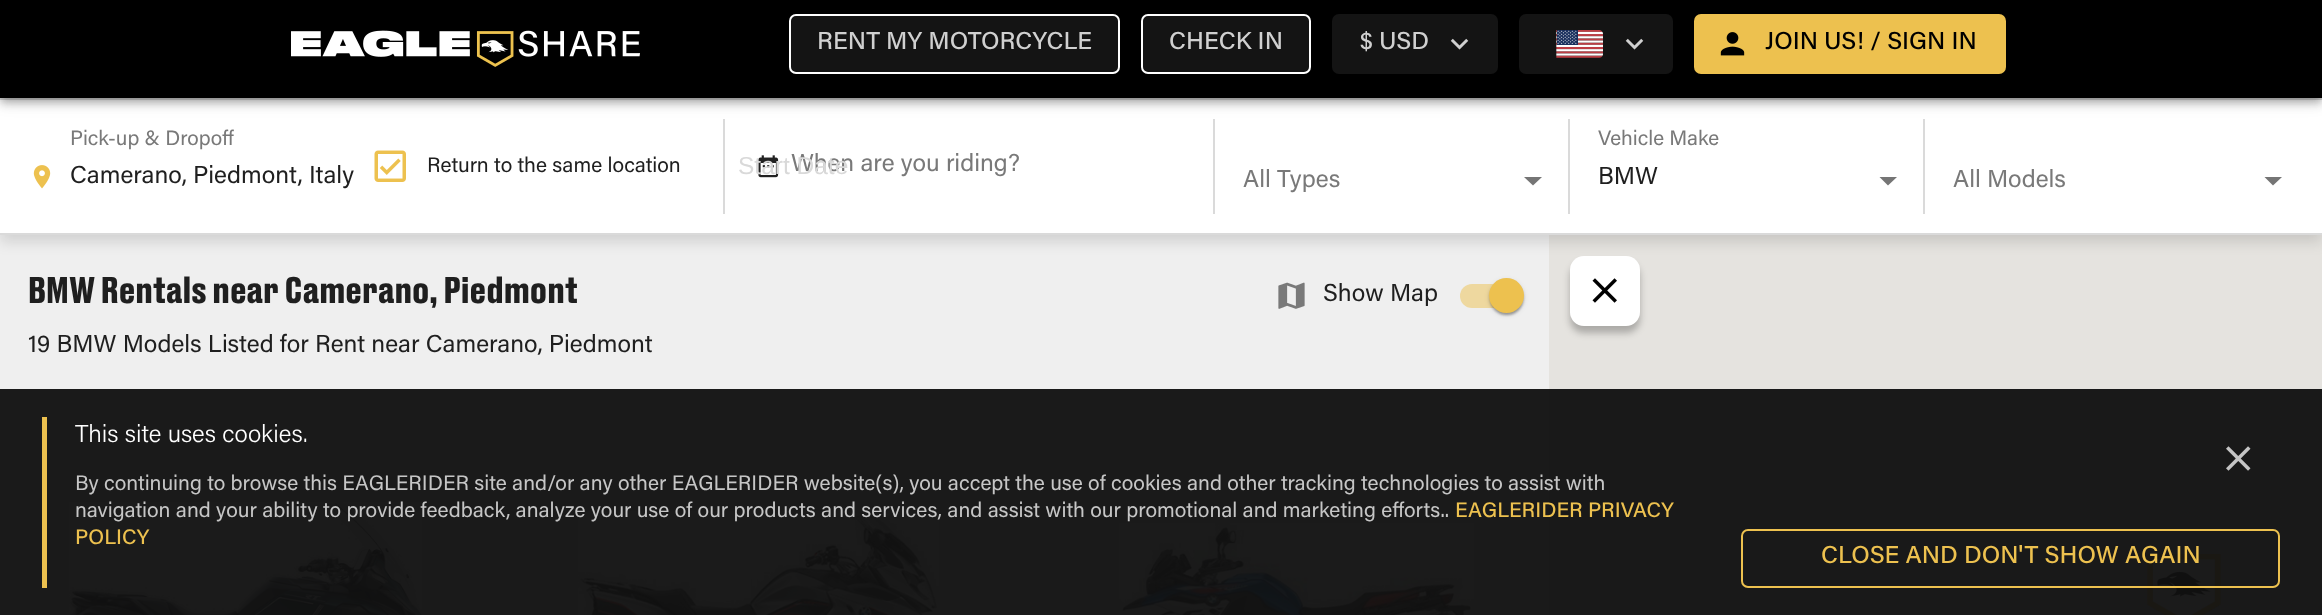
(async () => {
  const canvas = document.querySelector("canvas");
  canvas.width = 2322;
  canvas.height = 615;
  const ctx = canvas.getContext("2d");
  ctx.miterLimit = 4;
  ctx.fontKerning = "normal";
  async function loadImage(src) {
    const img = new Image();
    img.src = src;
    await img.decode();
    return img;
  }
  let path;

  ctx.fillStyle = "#efefef";
  ctx.fillRect(0, 0, 2322, 615);
  ctx.fillStyle = "#e5e3df";
  ctx.fillRect(1549, 235, 773, 154);
  ctx.fillStyle = "rgba(0, 0, 0, 0.25)";
  ctx.filter = "blur(3.5px)";
  ctx.beginPath();
  ctx.roundRect(1570, 263, 70, 70, 14);
  ctx.fill();
  ctx.filter = "none";
  ctx.fillStyle = "#ffffff";
  ctx.beginPath();
  ctx.roundRect(1570, 256, 70, 70, 14);
  ctx.fill();
  ctx.fillStyle = "rgba(0, 0, 0, 0.12)";
  ctx.filter = "blur(7px)";
  ctx.beginPath();
  ctx.rect(0, 105, 2322, 137);
  ctx.fill();
  ctx.filter = "none";
  for (const [x, y, w, h, color] of [
    [0, 100, 2322, 133, "#ffffff"],
    [0, 98, 2322, 2, "#dadada"],
    [723, 119, 2, 95, "#dadada"],
    [1213, 119, 2, 95, "#dadada"],
    [1568, 119, 2, 95, "#dadada"],
    [1923, 119, 2, 95, "#dadada"],
  ]) {
    ctx.fillStyle = color;
    ctx.fillRect(x, y, w, h);
  }
  ctx.fillStyle = "rgba(0, 0, 0, 0.12)";
  ctx.filter = "blur(9px)";
  ctx.beginPath();
  ctx.rect(0, 2, 2322, 98);
  ctx.fill();
  ctx.filter = "none";
  ctx.fillStyle = "rgba(0, 0, 0, 0.14)";
  ctx.filter = "blur(4.5px)";
  ctx.beginPath();
  ctx.rect(0, 7, 2322, 98);
  ctx.fill();
  ctx.filter = "none";
  ctx.fillStyle = "rgba(0, 0, 0, 0.2)";
  ctx.filter = "blur(3.5px)";
  ctx.beginPath();
  ctx.rect(2, 5, 2319, 95);
  ctx.fill();
  ctx.filter = "none";
  ctx.fillStyle = "#000000";
  ctx.fillRect(0, 0, 2322, 98);
  ctx.drawImage(await loadImage("img/1.png"), 291, 30, 349, 37);
  ctx.fillStyle = "#141414";
  ctx.beginPath();
  ctx.roundRect(790, 15, 329, 58, 6);
  ctx.fill();
  ctx.strokeStyle = "#ffffff";
  ctx.lineWidth = 2;
  ctx.stroke();
  ctx.beginPath();
  ctx.roundRect(1142, 15, 168, 58, 6);
  ctx.fill();
  ctx.stroke();
  ctx.beginPath();
  ctx.roundRect(1332, 14, 166, 60, 7);
  ctx.fill();
  ctx.drawImage(await loadImage("img/2.png"), 1450, 38, 19, 12);
  ctx.beginPath();
  ctx.roundRect(1519, 14, 154, 60, 7);
  ctx.fill();
  ctx.drawImage(await loadImage("img/3.png"), 1556, 30, 47, 28);
  ctx.drawImage(await loadImage("img/2.png"), 1625, 38, 19, 12);
  ctx.fillStyle = "#edc14f";
  ctx.beginPath();
  ctx.roundRect(1694, 14, 312, 60, 7);
  ctx.fill();
  ctx.drawImage(await loadImage("img/4.png"), 1720, 32, 25, 24);
  ctx.fillStyle = "#dadada";
  ctx.fillRect(0, 233, 2322, 2);
  ctx.drawImage(await loadImage("img/5.png"), 33, 165, 18, 24);
  ctx.drawImage(await loadImage("img/6.png"), 374, 150, 32, 32);
  ctx.drawImage(await loadImage("img/7.png"), 758, 155, 21, 23);
  ctx.fillStyle = "#757575";
  path = new Path2D("M1524 177L1533 185.5L1542 177Z");
  ctx.fill(path);
  path = new Path2D("M1879.5 177L1888 185.5L1897 177Z");
  ctx.fill(path);
  path = new Path2D("M2264.5 177L2273 185.5L2282 177Z");
  ctx.fill(path);
  ctx.fillStyle = "#1a1a1a";
  ctx.fillRect(0, 389, 1549, 226);
  ctx.drawImage(await loadImage("img/8.png"), 1278, 282, 27, 27);
  ctx.fillStyle = "#eed89f";
  ctx.beginPath();
  ctx.roundRect(1460, 284, 59, 24, 12);
  ctx.fill();
  ctx.fillStyle = "rgba(0, 0, 0, 0.12)";
  ctx.filter = "blur(2.5px)";
  ctx.beginPath();
  ctx.roundRect(1489, 280, 35, 35, 17.5);
  ctx.fill();
  ctx.filter = "none";
  ctx.fillStyle = "rgba(0, 0, 0, 0.14)";
  ctx.filter = "blur(1px)";
  ctx.beginPath();
  ctx.roundRect(1489, 280, 35, 35, 17.5);
  ctx.fill();
  ctx.filter = "none";
  ctx.fillStyle = "rgba(0, 0, 0, 0.2)";
  ctx.filter = "blur(1px)";
  ctx.beginPath();
  ctx.roundRect(1491, 284, 32, 31, 15.5);
  ctx.fill();
  ctx.filter = "none";
  ctx.fillStyle = "#edc14f";
  ctx.beginPath();
  ctx.arc(1506.5, 295.5, 17.5, 0, Math.PI * 2);
  ctx.fill();
  ctx.drawImage(await loadImage("img/9.png"), 69, 502, 353, 113);
  ctx.drawImage(await loadImage("img/10.png"), 578, 511, 361, 104);
  ctx.drawImage(await loadImage("img/11.png"), 1119, 523, 355, 92);
  ctx.fillStyle = "#191919";
  ctx.fillRect(1549, 389, 773, 226);
  ctx.drawImage(await loadImage("img/12.png"), 2147, 554, 74, 61);
  ctx.drawImage(await loadImage("img/13.png"), 1592, 278, 25, 25);
  ctx.fillStyle = "#edc14f";
  ctx.fillRect(42, 417, 5, 171);
  ctx.drawImage(await loadImage("img/14.png"), 2226, 446, 25, 25);
  ctx.beginPath();
  ctx.roundRect(1742, 530, 537, 57, 6);
  ctx.strokeStyle = "#edc14f";
  ctx.stroke();
  ctx.font = "500 24.5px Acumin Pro";
  ctx.fillStyle = "#d0d0d0";
  for (const [text, x, y] of [
    ["RENT MY MOTORCYCLE", 817, 49],
    ["CHECK IN", 1169, 49],
    ["$ USD", 1360, 49],
  ]) {
    ctx.fillText(text, x, y);
  }
  ctx.fillStyle = "#000000";
  ctx.fillText("JOIN US! / SIGN IN", 1765, 49);
  ctx.font = "20.75px Acumin Pro";
  ctx.fillStyle = "#797979";
  ctx.fillText("Pick-up & Dropoff", 70, 145);
  ctx.font = "24.5px Acumin Pro";
  ctx.fillStyle = "#1f1f1f";
  ctx.fillText("Camerano, Piedmont, Italy", 70, 183);
  ctx.font = "21px Acumin Pro";
  ctx.fillText("Return to the same location", 427, 172);
  ctx.font = "24.5px Acumin Pro";
  ctx.fillStyle = "#797979";
  ctx.fillText("When are you riding?", 791, 171);
  ctx.font = "24.5px Liberation Sans";
  ctx.fillStyle = "#d9d9d9";
  ctx.fillText("Start Date", 738, 174);
  ctx.font = "24.5px Acumin Pro";
  ctx.fillStyle = "#797979";
  ctx.fillText("All Types", 1243, 187);
  ctx.font = "20.75px Acumin Pro";
  ctx.fillText("Vehicle Make", 1598, 145);
  ctx.font = "24.5px Acumin Pro";
  ctx.fillStyle = "#1f1f1f";
  ctx.fillText("BMW", 1598, 184);
  ctx.fillStyle = "#797979";
  ctx.fillText("All Models", 1953, 187);
  ctx.font = "bold 35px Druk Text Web";
  ctx.fillStyle = "#1f1f1f";
  ctx.fillText("BMW Rentals near Camerano, Piedmont", 28, 303);
  ctx.font = "24.5px Acumin Pro";
  ctx.fillText("19 BMW Models Listed for Rent near Camerano, Piedmont", 28, 352);
  ctx.fillText("Show Map", 1323, 301);
  ctx.font = "300 24.5px Acumin Pro";
  ctx.fillStyle = "#ffffff";
  ctx.fillText("This site uses cookies.", 75, 442);
  ctx.font = "21px Acumin Pro";
  ctx.fillStyle = "#c6c6c6";
  ctx.fillText("By continuing to browse this EAGLERIDER site and/or any other EAGLERIDER website(s), you accept the use of cookies and other tracking technologies to assist with", 75, 490);
  ctx.fillText("navigation and your ability to provide feedback, analyze your use of our products and services, and assist with our promotional and marketing efforts..", 75, 517);
  ctx.font = "500 21px Acumin Pro";
  ctx.fillStyle = "#edc14f";
  ctx.fillText("EAGLERIDER PRIVACY", 1455, 517);
  ctx.fillText("POLICY", 75, 544);
  ctx.font = "500 24.5px Acumin Pro";
  ctx.fillText("CLOSE AND DON'T SHOW AGAIN", 1821, 563);
})();
